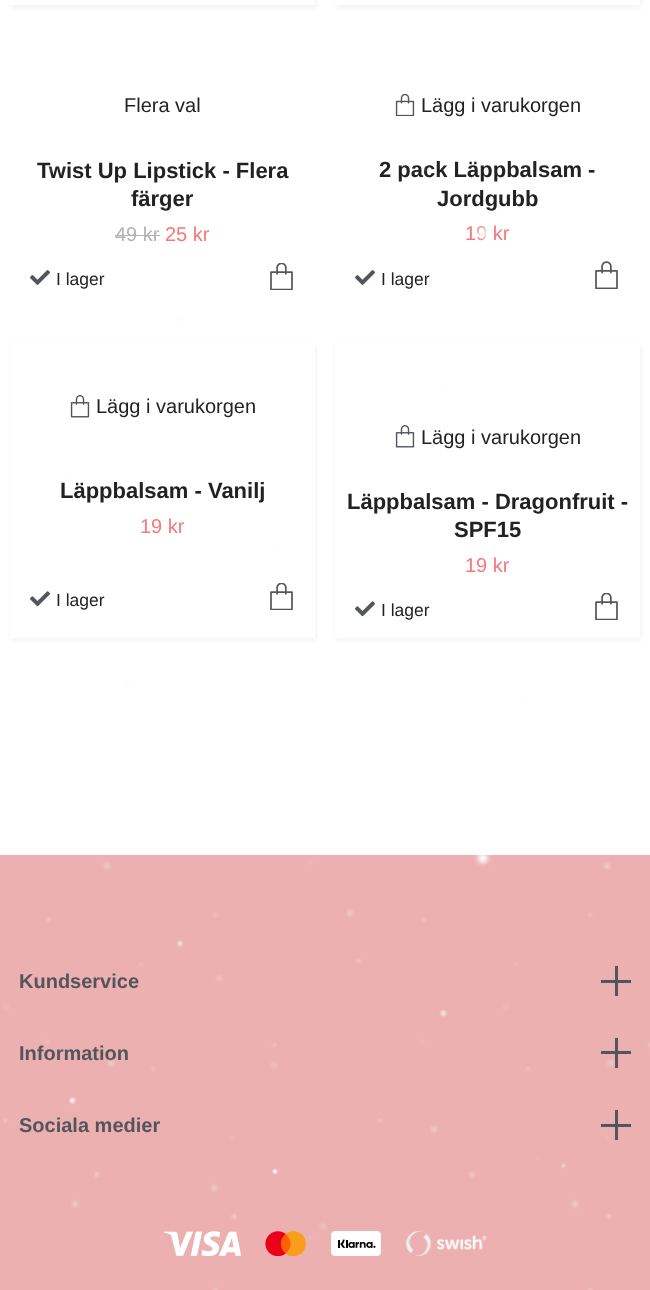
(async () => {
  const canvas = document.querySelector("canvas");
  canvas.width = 650;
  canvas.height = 1290;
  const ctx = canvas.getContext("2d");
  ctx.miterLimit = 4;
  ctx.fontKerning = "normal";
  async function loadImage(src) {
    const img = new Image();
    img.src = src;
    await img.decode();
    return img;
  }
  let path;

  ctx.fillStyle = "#ffffff";
  ctx.fillRect(0, 0, 650, 1290);
  ctx.save();
  path = new Path2D("M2 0H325V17H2ZM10-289H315V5H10Z");
  ctx.clip(path, "evenodd");
  ctx.fillStyle = "rgba(0, 0, 0, 0.05)";
  ctx.filter = "blur(2.5px)";
  ctx.beginPath();
  ctx.rect(11, -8, 305, 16);
  ctx.fill();
  ctx.filter = "none";
  ctx.restore();
  ctx.save();
  path = new Path2D("M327 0H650V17H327ZM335-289H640V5H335Z");
  ctx.clip(path, "evenodd");
  ctx.fillStyle = "rgba(0, 0, 0, 0.05)";
  ctx.filter = "blur(2.5px)";
  ctx.beginPath();
  ctx.rect(336, -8, 305, 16);
  ctx.fill();
  ctx.filter = "none";
  ctx.restore();
  ctx.fillStyle = "#b3b3b3";
  ctx.fillRect(115, 235, 45, 1);
  ctx.drawImage(await loadImage("img/1.png"), 30, 270, 20, 15);
  ctx.drawImage(await loadImage("img/2.png"), 270, 263, 23, 27);
  ctx.drawImage(await loadImage("img/3.png"), 395, 94, 20, 22);
  ctx.drawImage(await loadImage("img/1.png"), 355, 270, 20, 15);
  ctx.drawImage(await loadImage("img/4.png"), 595, 261, 23, 28);
  ctx.fillStyle = "rgba(0, 0, 0, 0.05)";
  ctx.filter = "blur(2.5px)";
  ctx.beginPath();
  ctx.rect(11, 346, 305, 294);
  ctx.fill();
  ctx.filter = "none";
  ctx.fillStyle = "#ffffff";
  ctx.fillRect(10, 344, 305, 294);
  ctx.drawImage(await loadImage("img/5.png"), 70, 395, 20, 23);
  ctx.drawImage(await loadImage("img/6.png"), 30, 591, 20, 16);
  ctx.drawImage(await loadImage("img/2.png"), 270, 583, 23, 27);
  ctx.fillStyle = "rgba(0, 0, 0, 0.05)";
  ctx.filter = "blur(2.5px)";
  ctx.beginPath();
  ctx.rect(336, 346, 305, 294);
  ctx.fill();
  ctx.filter = "none";
  ctx.fillStyle = "#ffffff";
  ctx.fillRect(335, 344, 305, 294);
  ctx.drawImage(await loadImage("img/5.png"), 395, 425, 20, 23);
  ctx.drawImage(await loadImage("img/6.png"), 355, 601, 20, 16);
  ctx.drawImage(await loadImage("img/2.png"), 595, 593, 23, 27);
  for (const [x, y, w, h, color] of [
    [0, 855, 650, 435, "#edb0b0"],
    [615, 966, 3, 30, "#53555d"],
    [601, 980, 30, 3, "#53555d"],
    [615, 1038, 3, 30, "#53555d"],
    [601, 1051, 30, 3, "#53555d"],
    [615, 1110, 3, 30, "#53555d"],
    [601, 1124, 30, 3, "#53555d"],
  ]) {
    ctx.fillStyle = color;
    ctx.fillRect(x, y, w, h);
  }
  ctx.drawImage(await loadImage("img/8.png"), 164, 1231, 77, 25);
  ctx.drawImage(await loadImage("img/9.png"), 265, 1231, 41, 25);
  ctx.drawImage(await loadImage("img/10.png"), 331, 1231, 50, 25);
  ctx.drawImage(await loadImage("img/11.png"), 406, 1231, 81, 25);
  ctx.font = "20px Liberation Sans";
  ctx.fillStyle = "#222222";
  ctx.fillText("Flera val", 124, 112);
  ctx.font = "bold 22px Liberation Sans";
  ctx.fillText("Twist Up Lipstick - Flera", 37, 178);
  ctx.fillText("färger", 131, 206);
  ctx.font = "20px Liberation Sans";
  ctx.fillStyle = "#b3b3b3";
  ctx.fillText("49 kr", 115, 241);
  ctx.fillStyle = "#f57979";
  ctx.fillText("25 kr", 165, 241);
  ctx.font = "17.5px Liberation Sans";
  ctx.fillStyle = "#222222";
  ctx.fillText("I lager", 56, 285);
  ctx.font = "20px Liberation Sans";
  ctx.fillText("Lägg i varukorgen", 421, 112);
  ctx.font = "bold 22px Liberation Sans";
  ctx.fillText("2 pack Läppbalsam -", 379, 177);
  ctx.fillText("Jordgubb", 437, 206);
  ctx.font = "20px Liberation Sans";
  ctx.fillStyle = "#f57979";
  ctx.fillText("19 kr", 465, 240);
  ctx.font = "17.5px Liberation Sans";
  ctx.fillStyle = "#222222";
  ctx.fillText("I lager", 381, 285);
  ctx.font = "20px Liberation Sans";
  ctx.fillText("Lägg i varukorgen", 96, 413);
  ctx.font = "bold 22px Liberation Sans";
  ctx.fillText("Läppbalsam - Vanilj", 60, 498);
  ctx.font = "20px Liberation Sans";
  ctx.fillStyle = "#f57979";
  ctx.fillText("19 kr", 140, 533);
  ctx.font = "17.5px Liberation Sans";
  ctx.fillStyle = "#222222";
  ctx.fillText("I lager", 56, 606);
  ctx.font = "20px Liberation Sans";
  ctx.fillText("Lägg i varukorgen", 421, 444);
  ctx.font = "bold 22px Liberation Sans";
  ctx.fillText("Läppbalsam - Dragonfruit -", 347, 509);
  ctx.fillText("SPF15", 454, 537);
  ctx.font = "20px Liberation Sans";
  ctx.fillStyle = "#f57979";
  ctx.fillText("19 kr", 465, 572);
  ctx.font = "17.5px Liberation Sans";
  ctx.fillStyle = "#222222";
  ctx.fillText("I lager", 381, 616);
  ctx.font = "bold 20px Liberation Sans";
  ctx.fillStyle = "#53555d";
  for (const [text, x, y] of [
    ["Kundservice", 19, 988],
    ["Information", 19, 1060],
    ["Sociala medier", 19, 1132],
  ]) {
    ctx.fillText(text, x, y);
  }
  ctx.drawImage(await loadImage("img/7.png"), 2, 166, 648, 1124);
})();
